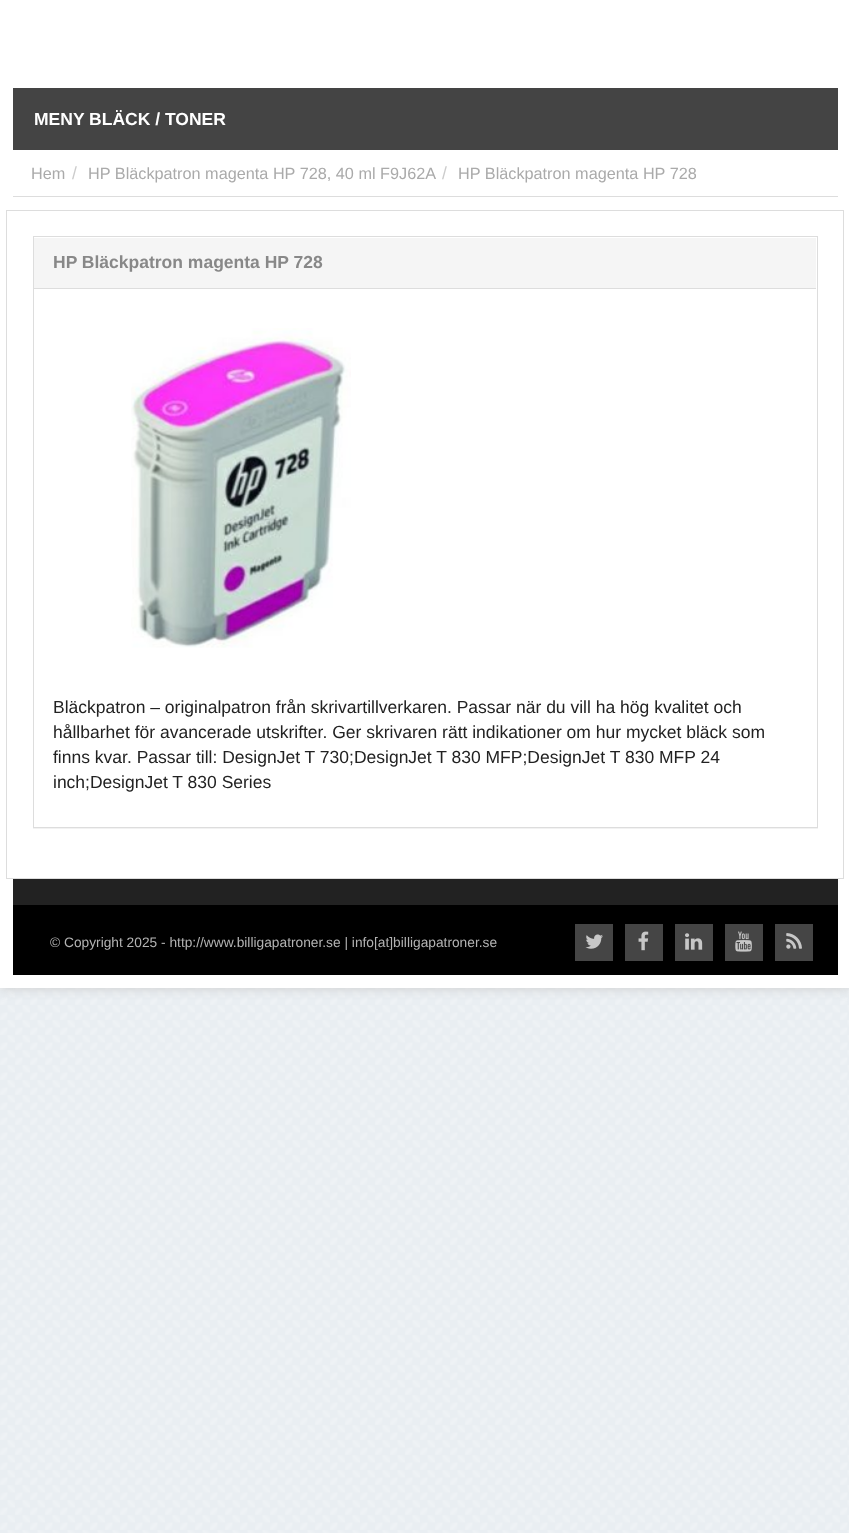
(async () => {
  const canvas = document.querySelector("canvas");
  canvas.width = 849;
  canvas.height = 1533;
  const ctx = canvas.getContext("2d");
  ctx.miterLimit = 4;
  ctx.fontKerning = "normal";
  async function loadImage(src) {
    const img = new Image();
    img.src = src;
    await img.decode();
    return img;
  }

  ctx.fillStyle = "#e9eef2";
  ctx.fillRect(0, 0, 849, 1533);
  ctx.drawImage(await loadImage("img/1.png"), 0, 988, 849, 545);
  ctx.fillStyle = "#cccccc";
  ctx.filter = "blur(6px)";
  ctx.beginPath();
  ctx.rect(0, 0, 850, 988);
  ctx.fill();
  ctx.filter = "none";
  for (const [x, y, w, h, color] of [
    [0, 0, 849, 988, "#ffffff"],
    [13, 88, 825, 62, "#444444"],
    [13, 196, 825, 1, "#dddddd"],
  ]) {
    ctx.fillStyle = color;
    ctx.fillRect(x, y, w, h);
  }
  ctx.strokeStyle = "#dddddd";
  ctx.strokeRect(6.5, 210.5, 837, 668);
  ctx.fillStyle = "rgba(0, 0, 0, 0.05)";
  ctx.filter = "blur(0.5px)";
  ctx.beginPath();
  ctx.rect(33, 238, 785, 591);
  ctx.fill();
  ctx.filter = "none";
  ctx.fillStyle = "#ffffff";
  ctx.fillRect(34, 238, 783, 589);
  ctx.strokeRect(33.5, 236.5, 784, 591);
  ctx.fillStyle = "#f5f5f5";
  ctx.fillRect(34, 238, 782, 50);
  ctx.fillStyle = "#dddddd";
  ctx.fillRect(34, 288, 782, 1);
  ctx.drawImage(await loadImage("img/2.png"), 131, 328, 220, 320);
  for (const [x, y, w, h, color] of [
    [13, 879, 825, 26, "#222222"],
    [13, 905, 825, 70, "#000000"],
    [575, 924, 38, 37, "#454545"],
  ]) {
    ctx.fillStyle = color;
    ctx.fillRect(x, y, w, h);
  }
  ctx.drawImage(await loadImage("img/3.png"), 585, 934, 18, 15);
  ctx.fillRect(625, 924, 38, 37);
  ctx.drawImage(await loadImage("img/4.png"), 638, 931, 11, 20);
  ctx.fillRect(675, 924, 38, 37);
  ctx.drawImage(await loadImage("img/5.png"), 685, 933, 18, 17);
  ctx.fillRect(725, 924, 38, 37);
  ctx.drawImage(await loadImage("img/6.png"), 735, 931, 17, 21);
  ctx.fillRect(775, 924, 38, 37);
  ctx.drawImage(await loadImage("img/7.png"), 786, 933, 16, 16);
  ctx.font = "bold 17.5px Liberation Sans";
  ctx.fillStyle = "#ffffff";
  ctx.fillText("MENY BLÄCK / TONER", 34, 125);
  ctx.font = "16.25px Liberation Sans";
  ctx.fillStyle = "#aaaaaa";
  ctx.fillText("Hem", 31, 179);
  ctx.font = "17.5px Liberation Sans";
  ctx.fillStyle = "#cccccc";
  ctx.fillText("/", 72, 179);
  ctx.font = "16.25px Liberation Sans";
  ctx.fillStyle = "#aaaaaa";
  ctx.fillText("HP Bläckpatron magenta HP 728, 40 ml F9J62A", 88, 179);
  ctx.font = "17.5px Liberation Sans";
  ctx.fillStyle = "#cccccc";
  ctx.fillText("/", 442, 179);
  ctx.font = "16.25px Liberation Sans";
  ctx.fillStyle = "#aaaaaa";
  ctx.fillText("HP Bläckpatron magenta HP 728", 458, 179);
  ctx.font = "bold 17.5px Liberation Sans";
  ctx.fillStyle = "#888888";
  ctx.fillText("HP Bläckpatron magenta HP 728", 53, 268);
  ctx.font = "17.5px Liberation Sans";
  ctx.fillStyle = "#222222";
  for (const [text, x, y] of [
    ["Bläckpatron – originalpatron från skrivartillverkaren. Passar när du vill ha hög kvalitet och", 53, 713],
    ["hållbarhet för avancerade utskrifter. Ger skrivaren rätt indikationer om hur mycket bläck som", 53, 738],
    ["finns kvar. Passar till: DesignJet T 730;DesignJet T 830 MFP;DesignJet T 830 MFP 24", 53, 763],
    ["inch;DesignJet T 830 Series", 53, 788],
  ]) {
    ctx.fillText(text, x, y);
  }
  ctx.font = "13.75px Liberation Sans";
  ctx.fillStyle = "#b3b3b3";
  ctx.fillText("© Copyright 2025 - http://www.billigapatroner.se | info[at]billigapatroner.se", 50, 947);
})();
